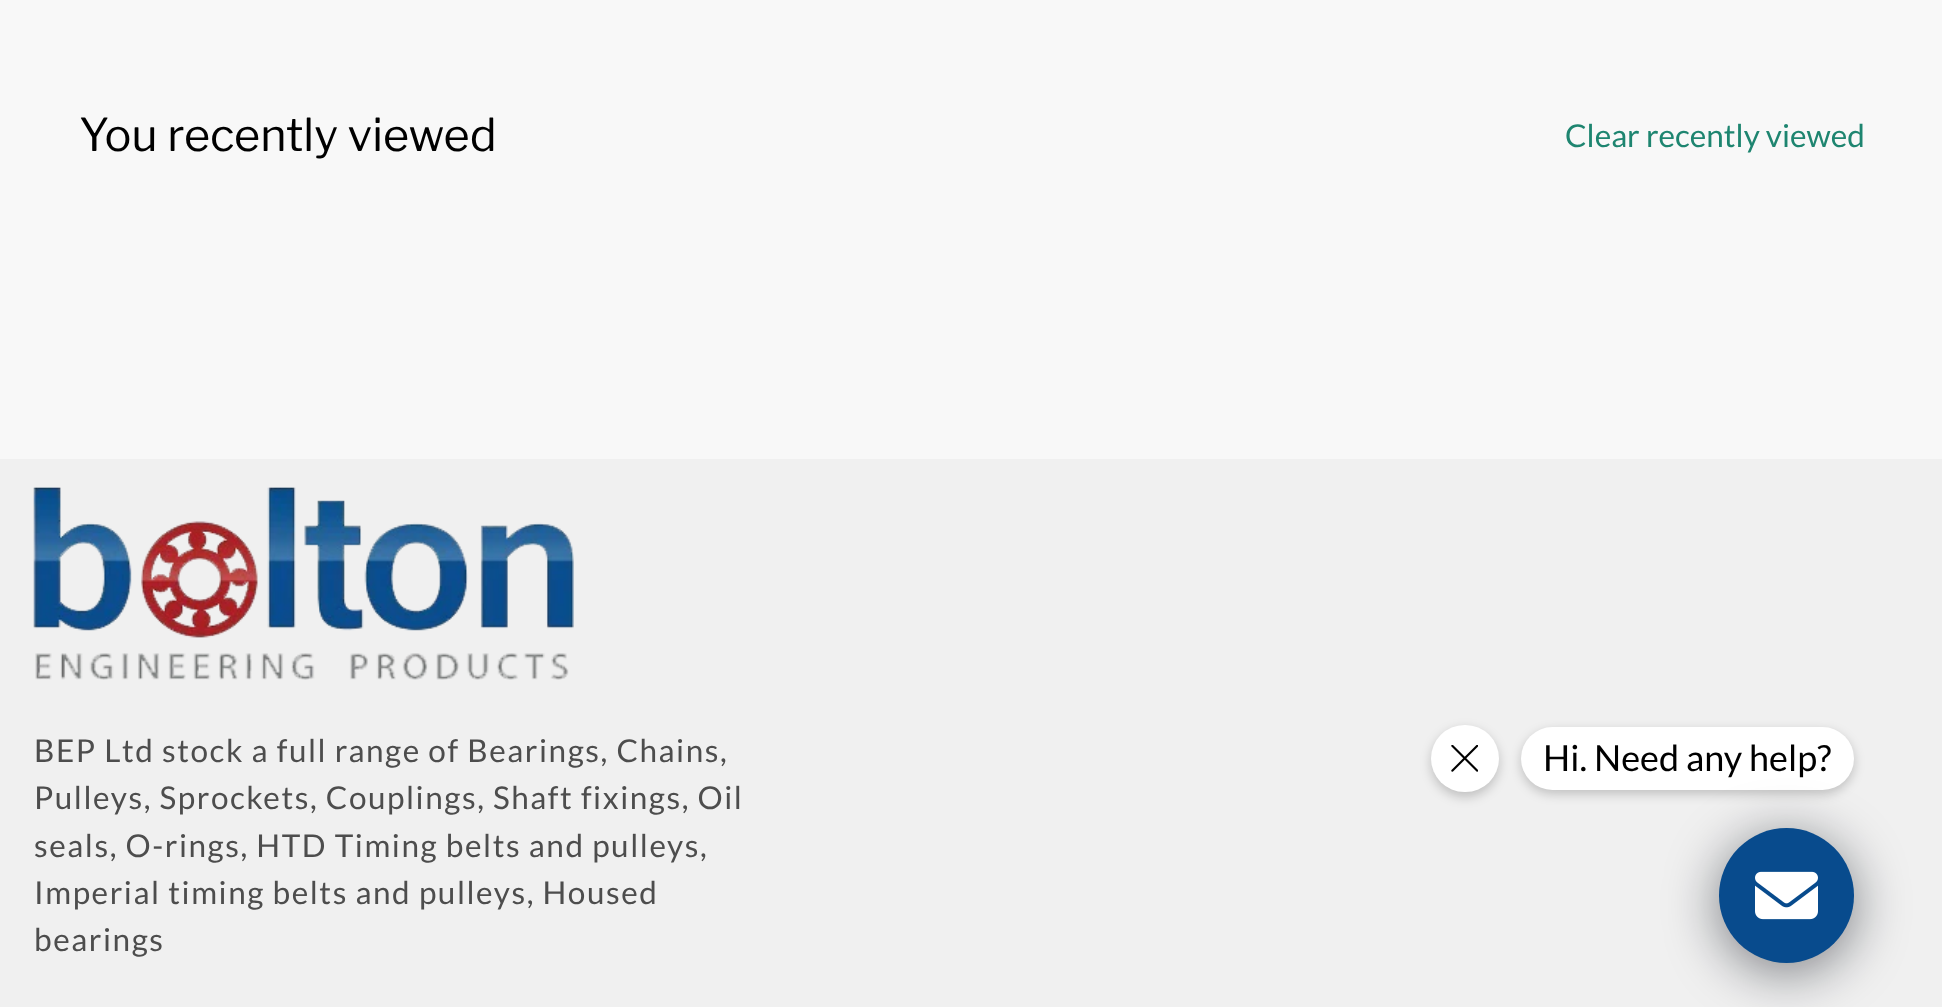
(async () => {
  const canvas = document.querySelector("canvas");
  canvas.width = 1942;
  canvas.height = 1007;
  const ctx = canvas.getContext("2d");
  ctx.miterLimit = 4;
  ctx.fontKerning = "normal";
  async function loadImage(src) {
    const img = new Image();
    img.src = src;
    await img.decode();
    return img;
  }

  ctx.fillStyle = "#f8f8f8";
  ctx.fillRect(0, 0, 1942, 1007);
  ctx.fillStyle = "#f0f0f0";
  ctx.fillRect(0, 459, 1942, 548);
  ctx.drawImage(await loadImage("img/1.png"), 33, 487, 541, 193);
  ctx.fillStyle = "rgba(0, 0, 0, 0.2)";
  ctx.filter = "blur(5.5px)";
  ctx.beginPath();
  ctx.roundRect(1431, 729, 68, 68, 34);
  ctx.fill();
  ctx.filter = "none";
  ctx.fillStyle = "#ffffff";
  ctx.beginPath();
  ctx.roundRect(1431, 725, 68, 67, 33.5);
  ctx.fill();
  ctx.drawImage(await loadImage("img/2.png"), 1451, 745, 27, 27);
  ctx.fillStyle = "rgba(0, 0, 0, 0.2)";
  ctx.filter = "blur(5.5px)";
  ctx.beginPath();
  ctx.roundRect(1521, 731, 333, 63, 31.5);
  ctx.fill();
  ctx.filter = "none";
  ctx.fillStyle = "#ffffff";
  ctx.beginPath();
  ctx.roundRect(1521, 727, 333, 63, 31.5);
  ctx.fill();
  ctx.fillStyle = "rgba(2, 6, 16, 0.5)";
  ctx.filter = "blur(27px)";
  ctx.beginPath();
  ctx.roundRect(1719, 837, 135, 135, 67.5);
  ctx.fill();
  ctx.filter = "none";
  ctx.fillStyle = "#084b8d";
  ctx.beginPath();
  ctx.arc(1786.5, 895.5, 67.5, 0, Math.PI * 2);
  ctx.fill();
  ctx.drawImage(await loadImage("img/3.png"), 1755, 871, 63, 49);
  ctx.font = "45px Libre Franklin";
  ctx.fillStyle = "#000000";
  ctx.fillText("You recently viewed", 79, 151);
  ctx.font = "31.5px Lato";
  ctx.fillStyle = "#1e8570";
  ctx.fillText("Clear recently viewed", 1565, 147);
  ctx.letterSpacing = "1.55px";
  ctx.fillStyle = "#4d4d4d";
  for (const [text, x, y] of [
    ["BEP Ltd stock a full range of Bearings, Chains,", 34, 762],
    ["Pulleys, Sprockets, Couplings, Shaft fixings, Oil", 34, 809],
    ["seals, O-rings, HTD Timing belts and pulleys,", 34, 857],
    ["Imperial timing belts and pulleys, Housed", 34, 904],
    ["bearings", 34, 951],
  ]) {
    ctx.fillText(text, x, y);
  }
  ctx.letterSpacing = "0px";
  ctx.font = "36px Lato";
  ctx.fillStyle = "#000000";
  ctx.fillText("Hi. Need any help?", 1543, 771);
})();
